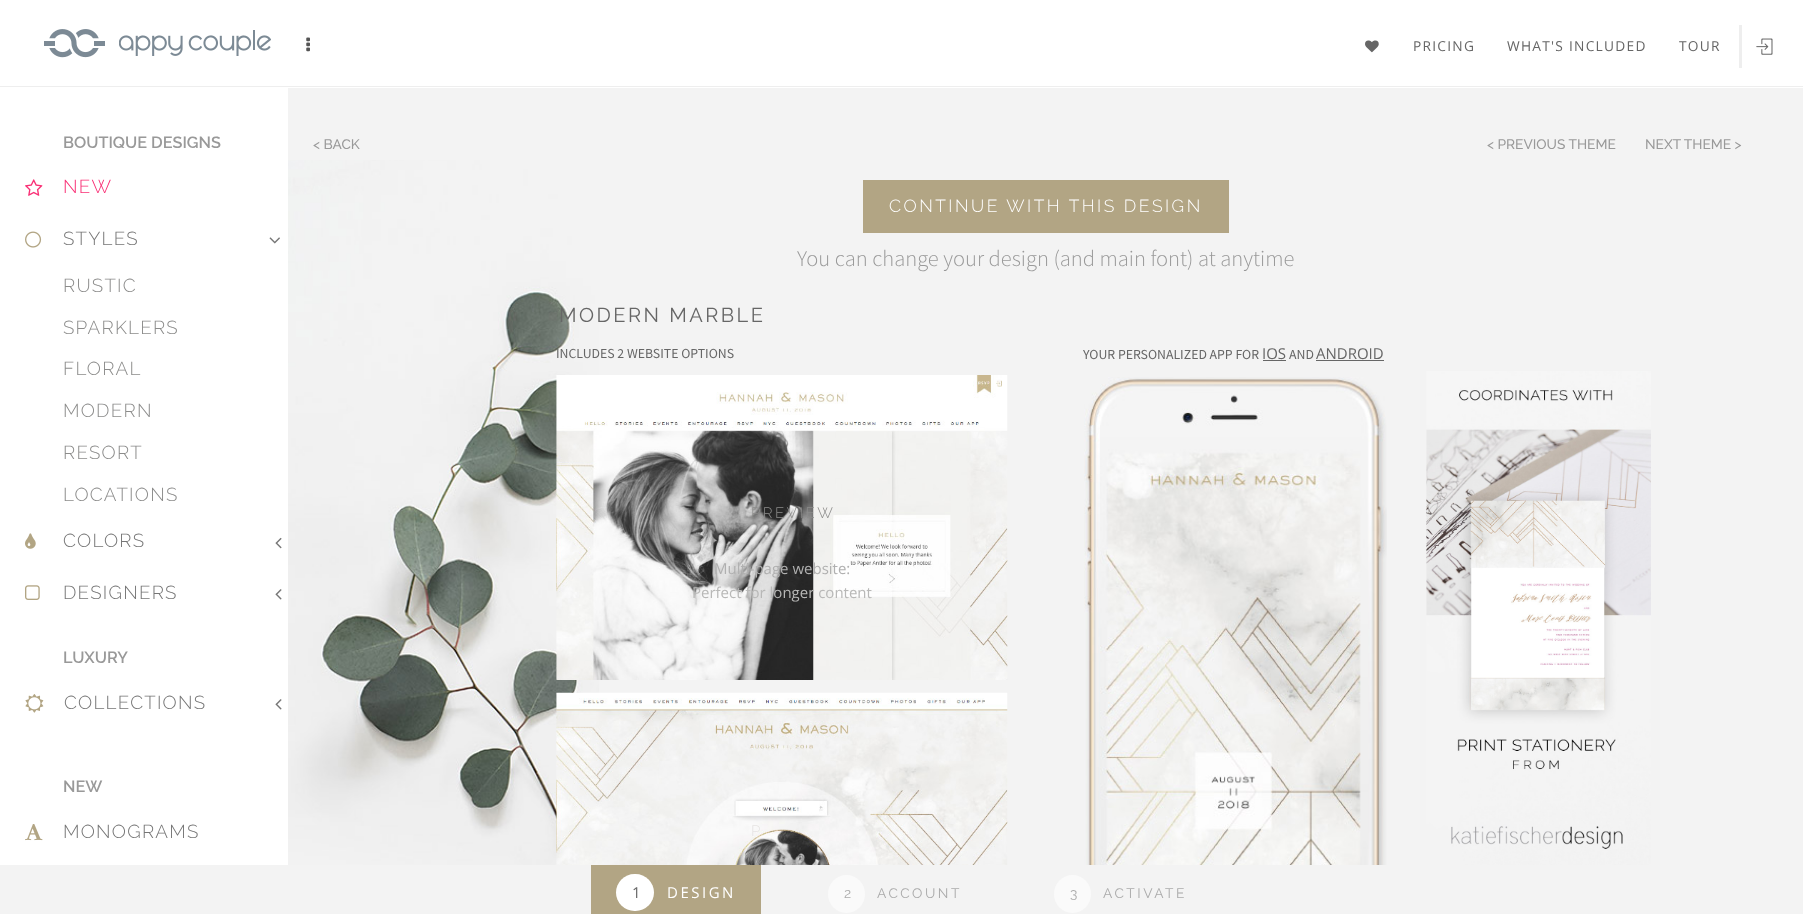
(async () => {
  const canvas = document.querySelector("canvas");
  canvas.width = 1803;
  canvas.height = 914;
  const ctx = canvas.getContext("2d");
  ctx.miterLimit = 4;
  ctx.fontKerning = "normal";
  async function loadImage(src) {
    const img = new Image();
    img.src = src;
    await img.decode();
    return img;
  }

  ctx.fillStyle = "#f3f3f3";
  ctx.fillRect(0, 0, 1803, 914);
  ctx.fillStyle = "#ffffff";
  ctx.fillRect(288, 0, 1515, 88);
  ctx.fillStyle = "#eeeeee";
  ctx.fillRect(288, 86, 1515, 1);
  ctx.drawImage(await loadImage("img/1.png"), 306, 37, 4, 15);
  ctx.drawImage(await loadImage("img/2.png"), 1365, 40, 14, 13);
  ctx.fillRect(1739, 25, 3, 43);
  ctx.drawImage(await loadImage("img/3.png"), 1756, 38, 17, 17);
  ctx.fillStyle = "#ffffff";
  ctx.fillRect(0, 0, 288, 865);
  ctx.fillStyle = "#eeeeee";
  ctx.fillRect(0, 86, 288, 1);
  ctx.drawImage(await loadImage("img/4.png"), 44, 29, 61, 29);
  ctx.drawImage(await loadImage("img/5.png"), 119, 30, 152, 26);
  ctx.drawImage(await loadImage("img/6.png"), 25, 179, 18, 17);
  ctx.drawImage(await loadImage("img/7.png"), 25, 231, 17, 17);
  ctx.drawImage(await loadImage("img/8.png"), 269, 237, 11, 7);
  ctx.drawImage(await loadImage("img/9.png"), 25, 533, 11, 16);
  ctx.drawImage(await loadImage("img/10.png"), 275, 537, 7, 12);
  ctx.drawImage(await loadImage("img/11.png"), 25, 585, 15, 15);
  ctx.drawImage(await loadImage("img/12.png"), 275, 589, 7, 11);
  ctx.drawImage(await loadImage("img/13.png"), 25, 694, 19, 19);
  ctx.drawImage(await loadImage("img/12.png"), 275, 699, 7, 11);
  ctx.drawImage(await loadImage("img/14.png"), 25, 824, 18, 17);
  ctx.drawImage(await loadImage("img/15.png"), 288, 160, 311, 705);
  ctx.fillStyle = "#b2a584";
  ctx.fillRect(863, 180, 366, 53);
  ctx.drawImage(await loadImage("img/16.png"), 556, 375, 452, 305);
  ctx.drawImage(await loadImage("img/17.png"), 556, 692, 452, 173);
  ctx.fillStyle = "#666666";
  ctx.fillRect(1263, 360, 23, 1);
  ctx.fillRect(1316, 360, 68, 1);
  ctx.drawImage(await loadImage("img/18.png"), 1084, 377, 303, 488);
  ctx.drawImage(await loadImage("img/19.png"), 1426, 371, 225, 494);
  ctx.fillStyle = "#b2a584";
  ctx.fillRect(591, 865, 170, 49);
  ctx.fillStyle = "#ffffff";
  ctx.beginPath();
  ctx.roundRect(616, 874, 38, 37, 18.5);
  ctx.fill();
  ctx.fillStyle = "#fafafa";
  ctx.beginPath();
  ctx.roundRect(828, 875, 37, 38, 18.5);
  ctx.fill();
  ctx.beginPath();
  ctx.roundRect(1054, 875, 37, 38, 18.5);
  ctx.fill();
  ctx.letterSpacing = "1.25px";
  ctx.font = "13.75px Open Sans";
  ctx.fillStyle = "#666666";
  for (const [text, x, y] of [
    ["PRICING", 1413, 51],
    ["WHAT'S INCLUDED", 1507, 51],
    ["TOUR", 1679, 51],
  ]) {
    ctx.fillText(text, x, y);
  }
  ctx.letterSpacing = "0px";
  ctx.font = "600 16.25px Raleway";
  ctx.fillStyle = "#999999";
  ctx.fillText("BOUTIQUE DESIGNS", 63, 148);
  ctx.letterSpacing = "1.25px";
  ctx.font = "300 18.75px Raleway";
  ctx.fillStyle = "#f92e74";
  ctx.fillText("NEW", 63, 193);
  ctx.fillStyle = "#767676";
  ctx.fillText("STYLES", 63, 245);
  ctx.fillStyle = "#8c8c8b";
  for (const [text, x, y] of [
    ["RUSTIC", 63, 292],
    ["SPARKLERS", 63, 334],
    ["FLORAL", 63, 375],
    ["MODERN", 63, 417],
    ["RESORT", 63, 459],
    ["LOCATIONS", 63, 501],
  ]) {
    ctx.fillText(text, x, y);
  }
  ctx.fillStyle = "#767676";
  ctx.fillText("COLORS", 63, 547);
  ctx.fillText("DESIGNERS", 63, 599);
  ctx.letterSpacing = "0px";
  ctx.font = "600 16.25px Raleway";
  ctx.fillStyle = "#999999";
  ctx.fillText("LUXURY", 63, 663);
  ctx.letterSpacing = "1.25px";
  ctx.font = "300 18.75px Raleway";
  ctx.fillStyle = "#767676";
  ctx.fillText("COLLECTIONS", 64, 709);
  ctx.letterSpacing = "0px";
  ctx.font = "600 16.25px Raleway";
  ctx.fillStyle = "#999999";
  ctx.fillText("NEW", 63, 792);
  ctx.letterSpacing = "1.25px";
  ctx.font = "300 18.75px Raleway";
  ctx.fillStyle = "#767676";
  ctx.fillText("MONOGRAMS", 63, 838);
  ctx.letterSpacing = "0px";
  ctx.font = "500 13.75px Raleway";
  ctx.fillStyle = "#999999";
  for (const [text, x, y] of [
    ["< BACK", 313, 149],
    ["< PREVIOUS THEME", 1487, 149],
    ["NEXT THEME >", 1645, 149],
  ]) {
    ctx.fillText(text, x, y);
  }
  ctx.letterSpacing = "2.5px";
  ctx.font = "300 17.5px Raleway";
  ctx.fillStyle = "#ffffff";
  ctx.fillText("CONTINUE WITH THIS DESIGN", 889, 212);
  ctx.letterSpacing = "0px";
  ctx.font = "300 22.5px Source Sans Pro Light";
  ctx.fillStyle = "#999999";
  ctx.fillText("You can change your design (and main font) at anytime", 797, 266);
  ctx.letterSpacing = "2.5px";
  ctx.font = "20px Raleway";
  ctx.fillStyle = "#666666";
  ctx.fillText("MODERN MARBLE", 559, 322);
  ctx.letterSpacing = "0px";
  ctx.font = "13.75px Source Sans Pro";
  ctx.fillText("INCLUDES 2 WEBSITE OPTIONS", 556, 358);
  ctx.letterSpacing = "2.5px";
  ctx.font = "300 15px Raleway";
  ctx.fillStyle = "#8c8c8b";
  ctx.fillText("PREVIEW", 751, 518);
  ctx.letterSpacing = "0px";
  ctx.font = "15px Open Sans";
  ctx.fillStyle = "#b0b0b0";
  ctx.fillText("Multi-page website:", 714, 574);
  ctx.fillStyle = "#b8b8b7";
  ctx.fillText("Perfect for longer content", 692, 598);
  ctx.letterSpacing = "2.5px";
  ctx.font = "300 15px Raleway";
  ctx.fillStyle = "#e6e4e2";
  ctx.fillText("P", 751, 836);
  ctx.letterSpacing = "0px";
  ctx.font = "13.75px Source Sans Pro";
  ctx.fillStyle = "#666666";
  ctx.fillText("YOUR PERSONALIZED APP FOR", 1083, 359);
  ctx.font = "15px Open Sans";
  ctx.fillText("IOS", 1262, 359);
  ctx.font = "13.75px Source Sans Pro";
  ctx.fillText("AND", 1289, 359);
  ctx.font = "15px Open Sans";
  ctx.fillText("ANDROID", 1316, 359);
  ctx.letterSpacing = "2.5px";
  ctx.fillText("1", 632, 898);
  ctx.fillStyle = "#ffffff";
  ctx.fillText("DESIGN", 667, 898);
  ctx.font = "13.75px Raleway";
  ctx.fillStyle = "#aaaaaa";
  for (const [text, x, y] of [
    ["2", 844, 898],
    ["ACCOUNT", 877, 898],
    ["3", 1070, 898],
    ["ACTIVATE", 1103, 898],
  ]) {
    ctx.fillText(text, x, y);
  }
})();
